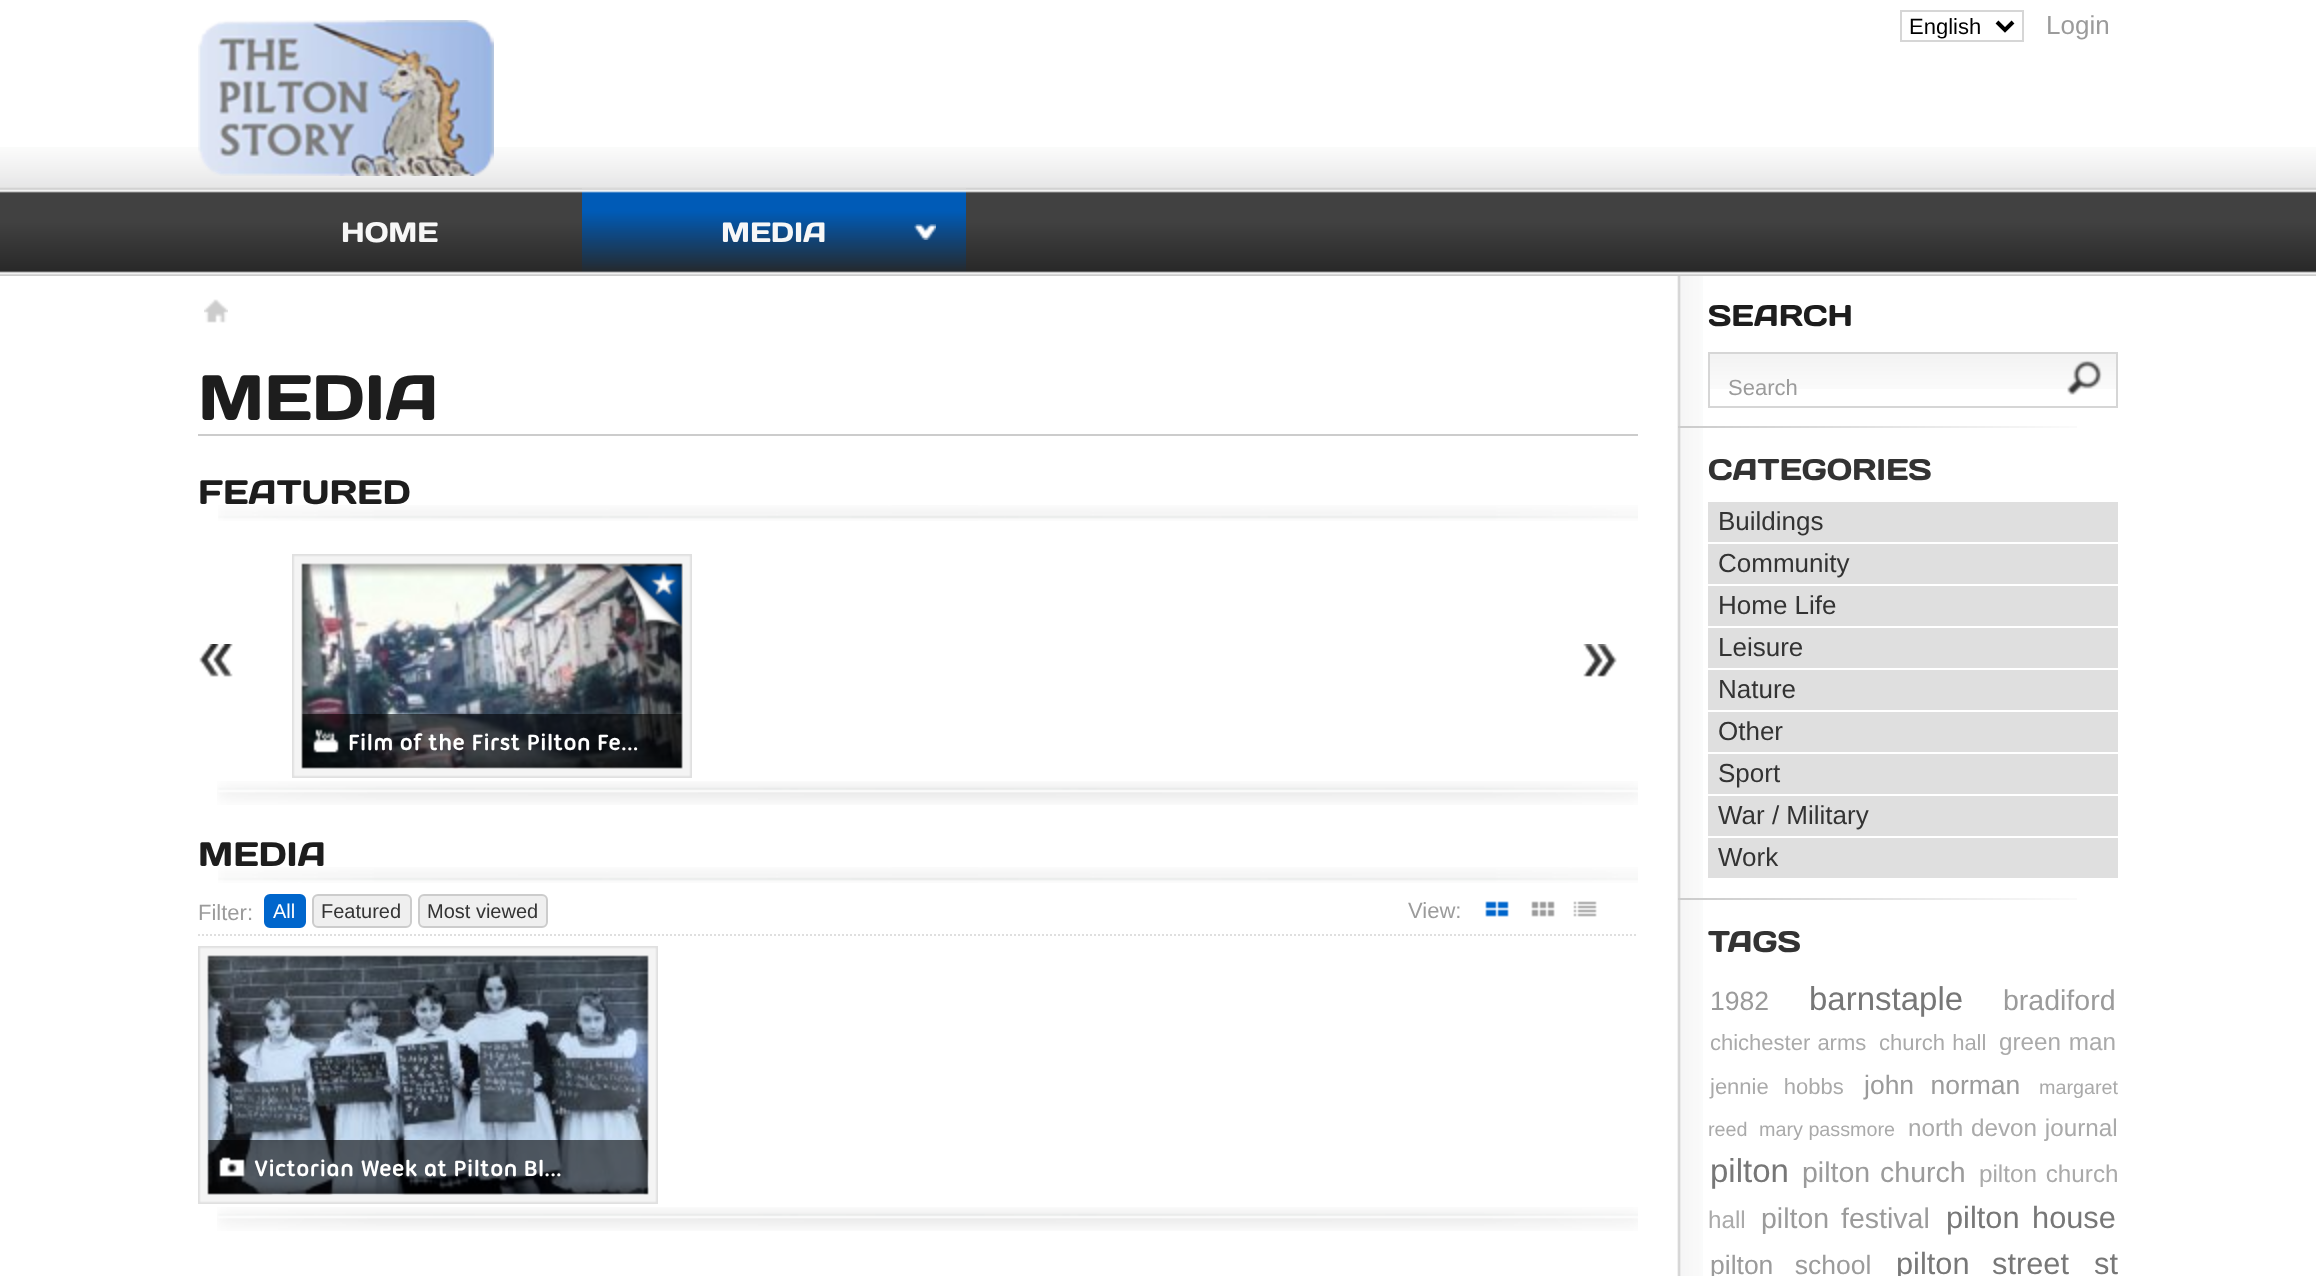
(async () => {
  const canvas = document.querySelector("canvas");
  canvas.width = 2316;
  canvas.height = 1276;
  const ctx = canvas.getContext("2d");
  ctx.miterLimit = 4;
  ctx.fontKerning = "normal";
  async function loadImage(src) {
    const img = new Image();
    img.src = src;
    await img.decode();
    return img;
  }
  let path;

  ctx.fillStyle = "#ffffff";
  ctx.fillRect(0, 0, 2316, 1276);
  ctx.drawImage(await loadImage("img/1.png"), 0, 147, 2316, 129);
  ctx.drawImage(await loadImage("img/2.png"), 198, 20, 296, 156);
  ctx.strokeStyle = "#d6d6d6";
  ctx.lineWidth = 2;
  ctx.strokeRect(1901, 11, 122, 30);
  path = new Path2D("M1997 22L2005 30L2013 22");
  ctx.strokeStyle = "#000000";
  ctx.lineWidth = 4;
  ctx.stroke(path);
  ctx.drawImage(await loadImage("img/3.png"), 582, 188, 384, 84);
  ctx.drawImage(await loadImage("img/4.png"), 914, 224, 22, 16);
  ctx.drawImage(await loadImage("img/5.png"), 1677, 276, 26, 1000);
  ctx.drawImage(await loadImage("img/6.png"), 204, 299, 24, 24);
  ctx.fillStyle = "#cccccc";
  ctx.fillRect(198, 434, 1440, 2);
  ctx.drawImage(await loadImage("img/7.png"), 217, 781, 1421, 24);
  ctx.drawImage(await loadImage("img/8.png"), 218, 505, 1420, 16);
  ctx.drawImage(await loadImage("img/9.png"), 199, 644, 34, 33);
  ctx.drawImage(await loadImage("img/10.png"), 1583, 644, 34, 33);
  ctx.drawImage(await loadImage("img/12.png"), 301, 563, 382, 206);
  ctx.drawImage(await loadImage("img/13.png"), 620, 565, 62, 68);
  ctx.fillStyle = "rgba(0, 0, 0, 0.6)";
  ctx.fillRect(302, 714, 381, 54);
  ctx.drawImage(await loadImage("img/14.png"), 313, 729, 26, 24);
  ctx.drawImage(await loadImage("img/7.png"), 217, 1207, 1421, 24);
  ctx.drawImage(await loadImage("img/8.png"), 218, 867, 1420, 16);
  path = new Path2D("M198 935H1638");
  ctx.strokeStyle = "#dfdfdf";
  ctx.lineWidth = 2;
  ctx.setLineDash([2, 2]);
  ctx.stroke(path);
  ctx.fillStyle = "#0066cc";
  ctx.beginPath();
  ctx.roundRect(265, 895, 40, 32, 5);
  ctx.fill();
  ctx.strokeStyle = "#0066cc";
  ctx.setLineDash([]);
  ctx.stroke();
  ctx.fillStyle = "#efefef";
  ctx.beginPath();
  ctx.roundRect(313, 895, 98, 32, 5);
  ctx.fill();
  ctx.strokeStyle = "#cccccc";
  ctx.stroke();
  ctx.beginPath();
  ctx.roundRect(419, 895, 128, 32, 5);
  ctx.fill();
  ctx.stroke();
  ctx.drawImage(await loadImage("img/15.png"), 1485, 901, 24, 16);
  ctx.drawImage(await loadImage("img/16.png"), 1531, 901, 24, 16);
  ctx.drawImage(await loadImage("img/17.png"), 1573, 901, 24, 16);
  ctx.drawImage(await loadImage("img/19.png"), 207, 955, 442, 240);
  ctx.fillStyle = "rgba(0, 0, 0, 0.6)";
  ctx.fillRect(208, 1140, 440, 54);
  ctx.drawImage(await loadImage("img/20.png"), 219, 1157, 26, 20);
  ctx.drawImage(await loadImage("img/21.png"), 1678, 426, 399, 2);
  ctx.drawImage(await loadImage("img/22.png"), 1710, 354, 406, 35);
  ctx.strokeStyle = "#d6d6d6";
  ctx.strokeRect(1709, 353, 408, 54);
  ctx.drawImage(await loadImage("img/23.png"), 2067, 360, 35, 35);
  ctx.drawImage(await loadImage("img/21.png"), 1678, 898, 399, 2);
  for (const [x, y, w, h, color] of [
    [1708, 502, 410, 40, "#dfdfdf"],
    [1708, 544, 410, 40, "#dfdfdf"],
    [1708, 586, 410, 40, "#dfdfdf"],
    [1708, 628, 410, 40, "#dfdfdf"],
    [1708, 670, 410, 40, "#dfdfdf"],
    [1708, 712, 410, 40, "#dfdfdf"],
    [1708, 754, 410, 40, "#dfdfdf"],
    [1708, 796, 410, 40, "#dfdfdf"],
    [1708, 838, 410, 40, "#dfdfdf"],
  ]) {
    ctx.fillStyle = color;
    ctx.fillRect(x, y, w, h);
  }
  ctx.font = "22px Liberation Sans";
  ctx.fillStyle = "#000000";
  ctx.fillText("English", 1909, 34);
  ctx.font = "26px Liberation Sans";
  ctx.fillStyle = "#9b9b9b";
  ctx.fillText("Login", 2046, 34);
  ctx.font = "28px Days";
  ctx.fillStyle = "#f7f7f7";
  ctx.fillText("HOME", 341, 242);
  ctx.fillText("MEDIA", 721, 242);
  ctx.font = "64px Days";
  ctx.fillStyle = "#1d1d1d";
  ctx.fillText("MEDIA", 198, 420);
  ctx.font = "34px Days";
  ctx.fillText("FEATURED", 198, 504);
  ctx.font = "bold 24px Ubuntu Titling";
  ctx.fillStyle = "#ffffff";
  ctx.fillText("Film of the First Pilton Fe...", 348, 750);
  ctx.drawImage(await loadImage("img/11.png"), 292, 554, 400, 224);
  ctx.font = "34px Days";
  ctx.fillStyle = "#1d1d1d";
  ctx.fillText("MEDIA", 198, 866);
  ctx.font = "22px Liberation Sans";
  ctx.fillStyle = "#9b9b9b";
  ctx.fillText("Filter:", 198, 920);
  ctx.font = "20px Liberation Sans";
  ctx.fillStyle = "#ffffff";
  ctx.fillText("All", 273, 918);
  ctx.fillStyle = "#333333";
  ctx.fillText("Featured", 321, 918);
  ctx.fillText("Most viewed", 427, 918);
  ctx.font = "22px Liberation Sans";
  ctx.fillStyle = "#9b9b9b";
  ctx.fillText("View:", 1408, 918);
  ctx.font = "bold 24px Ubuntu Titling";
  ctx.fillStyle = "#ffffff";
  ctx.fillText("Victorian Week at Pilton Bl...", 254, 1176);
  ctx.drawImage(await loadImage("img/18.png"), 198, 946, 460, 258);
  ctx.font = "30px Days";
  ctx.fillStyle = "#1d1d1d";
  ctx.fillText("SEARCH", 1708, 326);
  ctx.font = "22px Liberation Sans";
  ctx.fillStyle = "#9b9b9b";
  ctx.fillText("Search", 1728, 395);
  ctx.font = "30px Days";
  ctx.fillStyle = "#333333";
  ctx.fillText("CATEGORIES", 1708, 480);
  ctx.font = "26px Liberation Sans";
  for (const [text, x, y] of [
    ["Buildings", 1718, 530],
    ["Community", 1718, 572],
    ["Home Life", 1718, 614],
    ["Leisure", 1718, 656],
    ["Nature", 1718, 698],
    ["Other", 1718, 740],
    ["Sport", 1718, 782],
    ["War / Military", 1718, 824],
    ["Work", 1718, 866],
  ]) {
    ctx.fillText(text, x, y);
  }
  ctx.font = "30px Days";
  ctx.fillText("TAGS", 1708, 952);
  ctx.font = "26.5px Liberation Sans";
  ctx.fillStyle = "#9b9b9b";
  ctx.fillText("1982", 1710, 1010);
  ctx.font = "33px Liberation Sans";
  ctx.fillStyle = "#777777";
  ctx.fillText("barnstaple", 1809, 1010);
  ctx.font = "28.5px Liberation Sans";
  ctx.fillStyle = "#9b9b9b";
  ctx.fillText("bradiford", 2003, 1010);
  ctx.wordSpacing = "1px";
  ctx.font = "22px Liberation Sans";
  ctx.fillStyle = "#aaaaaa";
  ctx.fillText("chichester arms", 1710, 1050);
  ctx.fillText("church hall", 1879, 1050);
  ctx.font = "24.25px Liberation Sans";
  ctx.fillText("green man", 1999, 1050);
  ctx.wordSpacing = "9px";
  ctx.font = "22px Liberation Sans";
  ctx.fillText("jennie hobbs", 1710, 1094);
  ctx.font = "26.5px Liberation Sans";
  ctx.fillStyle = "#9b9b9b";
  ctx.fillText("john norman", 1864, 1094);
  ctx.wordSpacing = "0px";
  ctx.font = "19.75px Liberation Sans";
  ctx.fillStyle = "#aaaaaa";
  for (const [text, x, y] of [
    ["margaret", 2039, 1094],
    ["reed", 1708, 1136],
    ["mary passmore", 1759, 1136],
  ]) {
    ctx.fillText(text, x, y);
  }
  ctx.wordSpacing = "1px";
  ctx.font = "24.25px Liberation Sans";
  ctx.fillText("north devon journal", 1908, 1136);
  ctx.wordSpacing = "0px";
  ctx.font = "33px Liberation Sans";
  ctx.fillStyle = "#777777";
  ctx.fillText("pilton", 1710, 1182);
  ctx.wordSpacing = "2px";
  ctx.font = "28.5px Liberation Sans";
  ctx.fillStyle = "#9b9b9b";
  ctx.fillText("pilton church", 1802, 1182);
  ctx.font = "24.25px Liberation Sans";
  ctx.fillStyle = "#aaaaaa";
  ctx.fillText("pilton church", 1979, 1182);
  ctx.wordSpacing = "0px";
  ctx.fillText("hall", 1708, 1228);
  ctx.wordSpacing = "4px";
  ctx.font = "28.5px Liberation Sans";
  ctx.fillStyle = "#9b9b9b";
  ctx.fillText("pilton festival", 1761, 1228);
  ctx.font = "30.75px Liberation Sans";
  ctx.fillStyle = "#777777";
  ctx.fillText("pilton house", 1946, 1228);
  ctx.wordSpacing = "14px";
  ctx.font = "26.5px Liberation Sans";
  ctx.fillStyle = "#9b9b9b";
  ctx.fillText("pilton school", 1710, 1274);
  ctx.font = "30.75px Liberation Sans";
  ctx.fillStyle = "#777777";
  ctx.fillText("pilton street", 1896, 1274);
  ctx.wordSpacing = "0px";
  ctx.fillText("st", 2094, 1274);
})();
